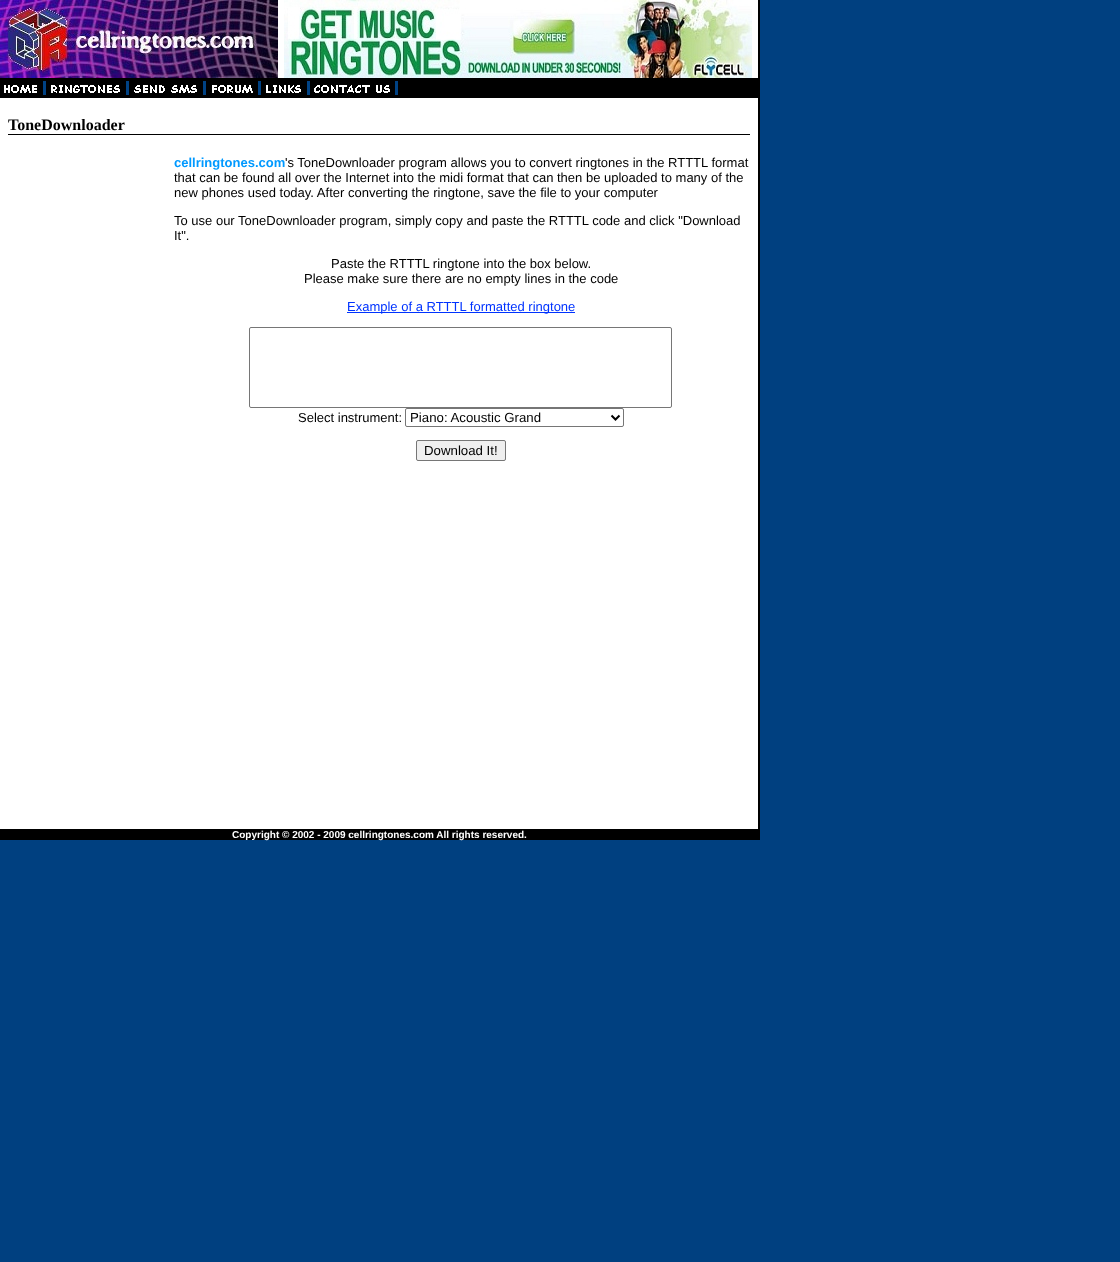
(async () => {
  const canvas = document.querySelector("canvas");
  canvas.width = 1120;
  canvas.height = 1262;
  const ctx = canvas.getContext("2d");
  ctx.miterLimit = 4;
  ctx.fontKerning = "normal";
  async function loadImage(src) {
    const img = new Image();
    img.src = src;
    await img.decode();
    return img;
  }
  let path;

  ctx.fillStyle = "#004080";
  ctx.fillRect(0, 0, 1120, 1262);
  ctx.fillStyle = "#ffffff";
  ctx.fillRect(0, 0, 758, 829);
  ctx.drawImage(await loadImage("img/1.png"), 0, 0, 278, 78);
  ctx.drawImage(await loadImage("img/2.png"), 284, 0, 468, 78);
  ctx.fillStyle = "#000000";
  ctx.fillRect(0, 78, 758, 20);
  ctx.drawImage(await loadImage("img/3.png"), 4, 81, 42, 14);
  ctx.drawImage(await loadImage("img/4.png"), 51, 81, 78, 14);
  ctx.drawImage(await loadImage("img/5.png"), 134, 81, 72, 14);
  ctx.drawImage(await loadImage("img/6.png"), 212, 81, 49, 14);
  ctx.drawImage(await loadImage("img/7.png"), 266, 81, 44, 14);
  ctx.drawImage(await loadImage("img/8.png"), 314, 81, 84, 14);
  ctx.fillRect(8, 134, 742, 1);
  ctx.fillStyle = "#0033ff";
  ctx.fillRect(347, 312, 228, 1);
  ctx.beginPath();
  ctx.roundRect(249.5, 327.5, 422, 80, 1.5);
  ctx.strokeStyle = "#767676";
  ctx.stroke();
  ctx.beginPath();
  ctx.roundRect(405.5, 408.5, 218, 18, 1.5);
  ctx.stroke();
  path = new Path2D("M611.5 415.5L615.5 419.5L619.5 415.5");
  ctx.strokeStyle = "#000000";
  ctx.lineWidth = 2;
  ctx.stroke(path);
  ctx.fillStyle = "#efefef";
  ctx.beginPath();
  ctx.roundRect(416.5, 440.5, 89, 20, 1.5);
  ctx.fill();
  ctx.strokeStyle = "#767676";
  ctx.lineWidth = 1;
  ctx.stroke();
  ctx.fillStyle = "#000000";
  ctx.fillRect(0, 829, 758, 11);
  ctx.fillRect(758, 0, 2, 840);
  ctx.font = "bold 16px Liberation Serif";
  ctx.fillText("ToneDownloader", 8, 130);
  ctx.font = "bold 13px Liberation Sans";
  ctx.fillStyle = "#0099ff";
  ctx.fillText("cellringtones.com", 174, 167);
  ctx.font = "13px Liberation Sans";
  ctx.fillStyle = "#000000";
  for (const [text, x, y] of [
    ["'s ToneDownloader program allows you to convert ringtones in the RTTTL format", 285, 167],
    ["that can be found all over the Internet into the midi format that can then be uploaded to many of the", 174, 182],
    ["new phones used today. After converting the ringtone, save the file to your computer", 174, 197],
    ["To use our ToneDownloader program, simply copy and paste the RTTTL code and click \"Download", 174, 225],
    ["It\".", 174, 240],
    ["Paste the RTTTL ringtone into the box below.", 331, 268],
    ["Please make sure there are no empty lines in the code", 304, 283],
  ]) {
    ctx.fillText(text, x, y);
  }
  ctx.fillStyle = "#0033ff";
  ctx.fillText("Example of a RTTTL formatted ringtone", 347, 311);
  ctx.fillStyle = "#000000";
  ctx.fillText("Select instrument:", 298, 422);
  ctx.font = "13.25px Liberation Sans";
  ctx.fillText("Piano: Acoustic Grand", 410, 422);
  ctx.fillText("Download It!", 424, 455);
  ctx.font = "bold 10px Liberation Sans";
  ctx.fillStyle = "#ffffff";
  ctx.fillText("Copyright © 2002 - 2009 cellringtones.com All rights reserved.", 232, 838);
})();
